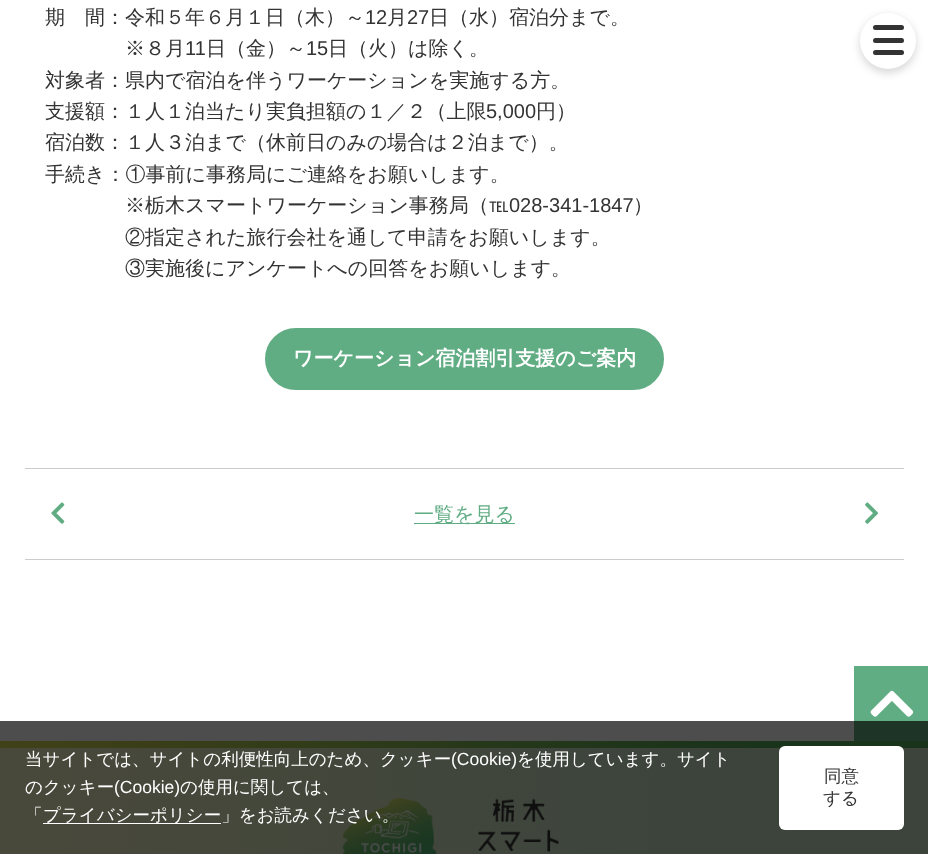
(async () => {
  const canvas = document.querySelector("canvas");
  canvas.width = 928;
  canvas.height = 854;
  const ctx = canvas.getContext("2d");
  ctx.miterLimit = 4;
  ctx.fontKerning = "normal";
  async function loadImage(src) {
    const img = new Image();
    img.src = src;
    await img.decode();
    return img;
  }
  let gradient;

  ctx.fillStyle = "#ffffff";
  ctx.fillRect(0, 0, 928, 854);
  ctx.fillStyle = "#4d4d4d";
  ctx.fillRect(0, 721, 854, 20);
  ctx.fillStyle = "#60ac83";
  ctx.beginPath();
  ctx.roundRect(266.5, 329.5, 396, 59, 29.5);
  ctx.fill();
  ctx.strokeStyle = "#60ac83";
  ctx.lineWidth = 3;
  ctx.stroke();
  ctx.fillStyle = "#cccccc";
  ctx.fillRect(25, 468, 879, 1);
  ctx.fillRect(25, 559, 879, 1);
  ctx.drawImage(await loadImage("img/1.png"), 51, 502, 14, 22);
  ctx.fillStyle = "#60ac83";
  ctx.fillRect(414, 523, 101, 1);
  ctx.drawImage(await loadImage("img/2.png"), 865, 502, 13, 22);
  ctx.fillStyle = "rgba(0, 0, 0, 0.16)";
  ctx.filter = "blur(4px)";
  ctx.beginPath();
  ctx.roundRect(860, 16, 56, 57, 28);
  ctx.fill();
  ctx.filter = "none";
  ctx.fillStyle = "#ffffff";
  ctx.beginPath();
  ctx.arc(888, 41, 28, 0, Math.PI * 2);
  ctx.fill();
  ctx.fillStyle = "#333333";
  ctx.beginPath();
  ctx.roundRect(873, 25, 31, 5, 2.5);
  ctx.fill();
  ctx.beginPath();
  ctx.roundRect(873, 38, 31, 5, 2.5);
  ctx.fill();
  ctx.beginPath();
  ctx.roundRect(873, 50, 31, 5, 2.5);
  ctx.fill();
  gradient = ctx.createLinearGradient(0, 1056, 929, 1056);
  gradient.addColorStop(0, "#49493b");
  gradient.addColorStop(0.17, "#46483b");
  gradient.addColorStop(0.37, "#43473b");
  gradient.addColorStop(0.5, "#40463c");
  gradient.addColorStop(0.63, "#3e453c");
  gradient.addColorStop(0.72, "#3d443c");
  gradient.addColorStop(0.83, "#3c443c");
  gradient.addColorStop(1, "#3c443c");
  ctx.fillStyle = gradient;
  ctx.fillRect(0, 748, 928, 106);
  ctx.fillStyle = "#60ac83";
  ctx.fillRect(854, 666, 74, 55);
  ctx.fillStyle = "#1d3427";
  ctx.fillRect(854, 721, 74, 20);
  ctx.drawImage(await loadImage("img/3.png"), 870, 690, 44, 27);
  gradient = ctx.createLinearGradient(0, 744, 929, 744);
  gradient.addColorStop(0, "#414118");
  gradient.addColorStop(0.17, "#393e18");
  gradient.addColorStop(0.37, "#2f3b19");
  gradient.addColorStop(0.5, "#27381a");
  gradient.addColorStop(0.63, "#21361a");
  gradient.addColorStop(0.72, "#1d341b");
  gradient.addColorStop(0.83, "#1a331b");
  gradient.addColorStop(1, "#1a331b");
  ctx.fillStyle = gradient;
  ctx.fillRect(0, 741, 928, 7);
  ctx.fillStyle = "#ffffff";
  ctx.fillRect(43, 823, 178, 1);
  ctx.beginPath();
  ctx.roundRect(779, 746, 125, 84, 6);
  ctx.fill();
  ctx.drawImage(await loadImage("img/4.png"), 342, 797, 217, 57);
  ctx.font = "500 20px WenQuanYi Zen Hei";
  ctx.fillStyle = "#333333";
  ctx.fillText("期　間：令和５年６月１日（木）～", 45, 24);
  ctx.font = "20px Liberation Sans";
  ctx.fillText("12", 365, 24);
  ctx.font = "500 20px WenQuanYi Zen Hei";
  ctx.fillText("月", 387, 24);
  ctx.font = "20px Liberation Sans";
  ctx.fillText("27", 407, 24);
  ctx.font = "500 20px WenQuanYi Zen Hei";
  ctx.fillText("日（水）宿泊分まで。", 429, 24);
  ctx.fillText("※８月", 125, 55);
  ctx.font = "20px Liberation Sans";
  ctx.fillText("11", 185, 55);
  ctx.font = "500 20px WenQuanYi Zen Hei";
  ctx.fillText("日（金）～", 206, 55);
  ctx.font = "20px Liberation Sans";
  ctx.fillText("15", 306, 55);
  ctx.font = "500 20px WenQuanYi Zen Hei";
  for (const [text, x, y] of [
    ["日（火）は除く。", 328, 55],
    ["対象者：県内で宿泊を伴うワーケーションを実施する方。", 45, 87],
    ["支援額：１人１泊当たり実負担額の１／２（上限", 45, 118],
  ]) {
    ctx.fillText(text, x, y);
  }
  ctx.font = "20px Liberation Sans";
  ctx.fillText("5,000", 486, 118);
  ctx.font = "500 20px WenQuanYi Zen Hei";
  for (const [text, x, y] of [
    ["円）", 536, 118],
    ["宿泊数：１人３泊まで（休前日のみの場合は２泊まで）。", 45, 149],
    ["手続き：①事前に事務局にご連絡をお願いします。", 45, 181],
    ["※栃木スマートワーケーション事務局（℡", 125, 212],
  ]) {
    ctx.fillText(text, x, y);
  }
  ctx.font = "20px Liberation Sans";
  ctx.fillText("028-341-1847", 509, 212);
  ctx.font = "500 20px WenQuanYi Zen Hei";
  for (const [text, x, y] of [
    ["）", 633, 212],
    ["②指定された旅行会社を通して申請をお願いします。", 125, 244],
    ["③実施後にアンケートへの回答をお願いします。", 125, 275],
  ]) {
    ctx.fillText(text, x, y);
  }
  ctx.font = "bold 20px WenQuanYi Zen Hei";
  ctx.fillStyle = "#ffffff";
  ctx.fillText("ワーケーション宿泊割引支援のご案内", 293, 365);
  ctx.font = "500 20px WenQuanYi Zen Hei";
  ctx.fillStyle = "#60ac83";
  ctx.fillText("一覧を見る", 414, 521);
  ctx.font = "500 17.5px WenQuanYi Zen Hei";
  ctx.fillStyle = "#ffffff";
  ctx.fillText("当サイトでは、サイトの利便性向上のため、クッキー", 25, 765);
  ctx.font = "17.5px Liberation Sans";
  ctx.fillText("(Cookie)", 451, 765);
  ctx.font = "500 17.5px WenQuanYi Zen Hei";
  ctx.fillText("を使用しています。サイト", 517, 765);
  ctx.fillText("のクッキー", 25, 793);
  ctx.font = "17.5px Liberation Sans";
  ctx.fillText("(Cookie)", 114, 793);
  ctx.font = "500 17.5px WenQuanYi Zen Hei";
  for (const [text, x, y] of [
    ["の使用に関しては、", 180, 793],
    ["「", 25, 821],
    ["プライバシーポリシー」をお読みください。", 43, 821],
  ]) {
    ctx.fillText(text, x, y);
  }
  ctx.fillStyle = "#333333";
  ctx.fillText("同意", 824, 782);
  ctx.fillText("する", 823, 804);
})();
